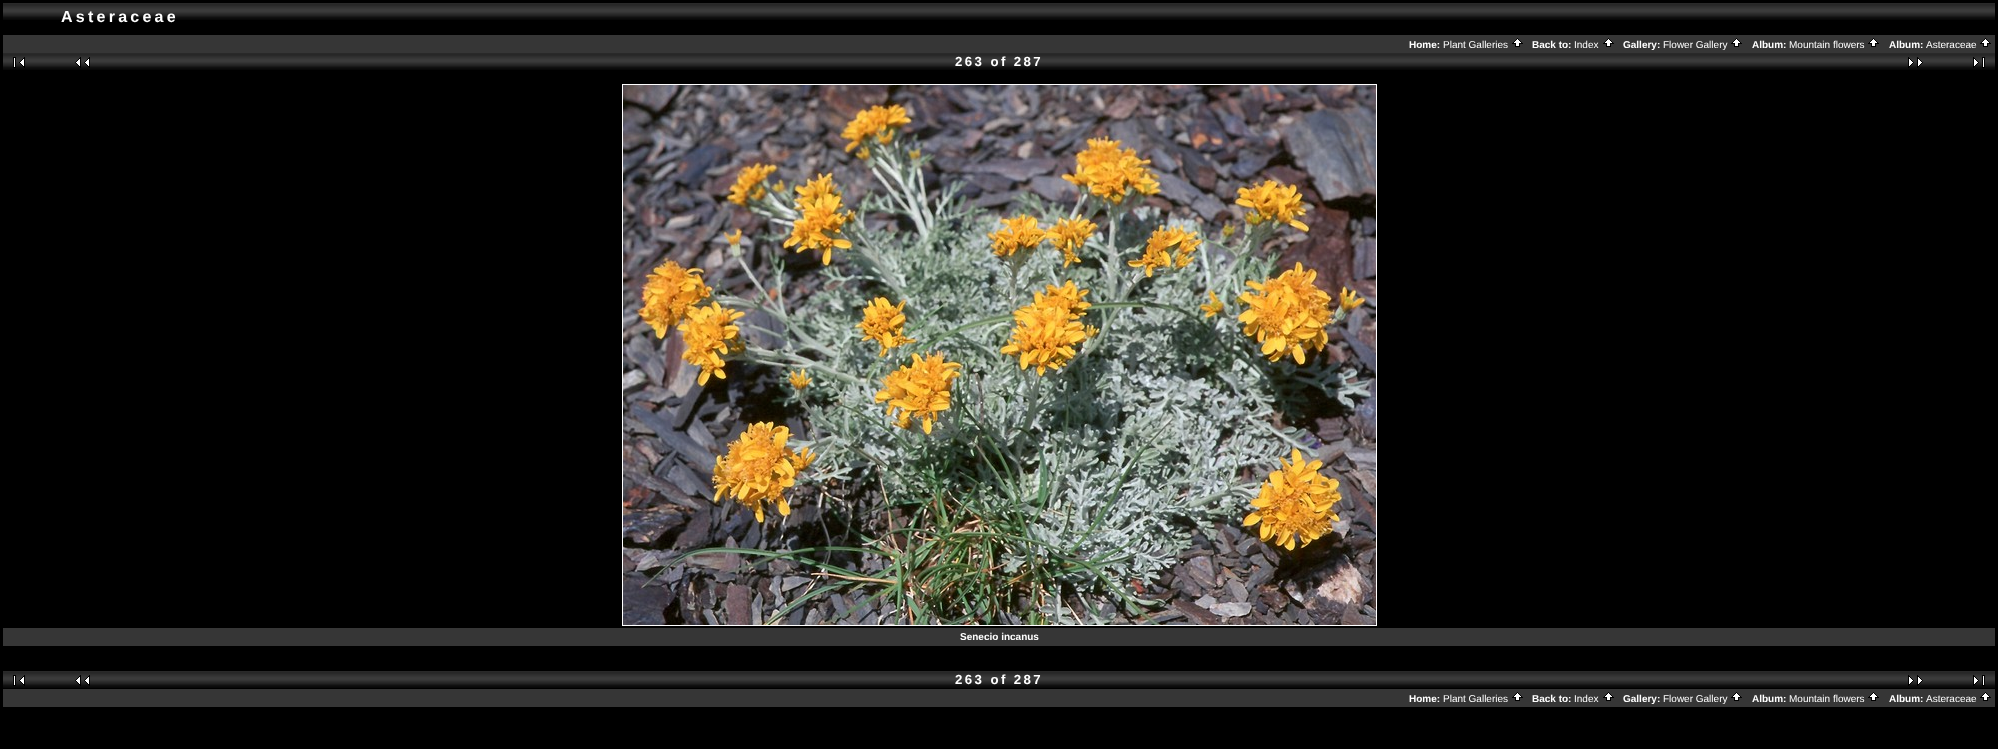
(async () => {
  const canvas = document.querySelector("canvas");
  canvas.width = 1998;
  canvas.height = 749;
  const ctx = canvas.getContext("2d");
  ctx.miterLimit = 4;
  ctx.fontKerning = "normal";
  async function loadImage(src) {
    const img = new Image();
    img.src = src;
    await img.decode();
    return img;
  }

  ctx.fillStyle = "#000000";
  ctx.fillRect(0, 0, 1998, 749);
  ctx.drawImage(await loadImage("img/1.png"), 3, 3, 1992, 17);
  ctx.fillStyle = "#363636";
  ctx.fillRect(3, 35, 1992, 18);
  ctx.drawImage(await loadImage("img/2.png"), 1512, 38, 11, 9);
  ctx.drawImage(await loadImage("img/2.png"), 1603, 38, 11, 9);
  ctx.drawImage(await loadImage("img/2.png"), 1731, 38, 11, 9);
  ctx.drawImage(await loadImage("img/2.png"), 1868, 38, 11, 9);
  ctx.drawImage(await loadImage("img/2.png"), 1980, 38, 11, 9);
  ctx.drawImage(await loadImage("img/1.png"), 3, 53, 1992, 17);
  ctx.drawImage(await loadImage("img/3.png"), 13, 57, 12, 11);
  ctx.drawImage(await loadImage("img/4.png"), 75, 57, 15, 11);
  ctx.drawImage(await loadImage("img/5.png"), 1908, 57, 15, 11);
  ctx.drawImage(await loadImage("img/6.png"), 1973, 57, 12, 11);
  ctx.fillStyle = "#ffffff";
  ctx.fillRect(622, 84, 755, 1);
  ctx.fillRect(622, 85, 1, 540);
  ctx.drawImage(await loadImage("img/7.png"), 623, 85, 753, 540);
  for (const [x, y, w, h, color] of [
    [1376, 85, 1, 540, "#ffffff"],
    [622, 625, 755, 1, "#ffffff"],
    [3, 628, 1992, 18, "#363636"],
  ]) {
    ctx.fillStyle = color;
    ctx.fillRect(x, y, w, h);
  }
  ctx.drawImage(await loadImage("img/1.png"), 3, 671, 1992, 17);
  ctx.drawImage(await loadImage("img/3.png"), 13, 675, 12, 11);
  ctx.drawImage(await loadImage("img/4.png"), 75, 675, 15, 11);
  ctx.drawImage(await loadImage("img/5.png"), 1908, 675, 15, 11);
  ctx.drawImage(await loadImage("img/6.png"), 1973, 675, 12, 11);
  ctx.fillRect(3, 689, 1992, 18);
  ctx.drawImage(await loadImage("img/2.png"), 1512, 692, 11, 9);
  ctx.drawImage(await loadImage("img/2.png"), 1603, 692, 11, 9);
  ctx.drawImage(await loadImage("img/2.png"), 1731, 692, 11, 9);
  ctx.drawImage(await loadImage("img/2.png"), 1868, 692, 11, 9);
  ctx.drawImage(await loadImage("img/2.png"), 1980, 692, 11, 9);
  ctx.letterSpacing = "3.25px";
  ctx.font = "bold 16px Liberation Sans";
  ctx.fillStyle = "#ffffff";
  ctx.fillText("Asteraceae", 61, 22);
  ctx.letterSpacing = "0px";
  ctx.font = "bold 10px Liberation Sans";
  ctx.fillText("Home:", 1409, 48);
  ctx.font = "10px Liberation Sans";
  ctx.fillText("Plant Galleries", 1443, 48);
  ctx.font = "bold 10px Liberation Sans";
  ctx.fillText("Back to:", 1532, 48);
  ctx.font = "10px Liberation Sans";
  ctx.fillText("Index", 1574, 48);
  ctx.font = "bold 10px Liberation Sans";
  ctx.fillText("Gallery:", 1623, 48);
  ctx.font = "10px Liberation Sans";
  ctx.fillText("Flower Gallery", 1663, 48);
  ctx.font = "bold 10px Liberation Sans";
  ctx.fillText("Album:", 1752, 48);
  ctx.font = "10px Liberation Sans";
  ctx.fillText("Mountain flowers", 1789, 48);
  ctx.font = "bold 10px Liberation Sans";
  ctx.fillText("Album:", 1889, 48);
  ctx.font = "10px Liberation Sans";
  ctx.fillText("Asteraceae", 1926, 48);
  ctx.letterSpacing = "2.4px";
  ctx.font = "bold 13.25px Liberation Sans";
  ctx.fillText("263 of 287", 955, 66);
  ctx.letterSpacing = "0px";
  ctx.font = "bold 10px Liberation Sans";
  ctx.fillText("Senecio incanus", 960, 640);
  ctx.letterSpacing = "2.4px";
  ctx.font = "bold 13.25px Liberation Sans";
  ctx.fillText("263 of 287", 955, 684);
  ctx.letterSpacing = "0px";
  ctx.font = "bold 10px Liberation Sans";
  ctx.fillText("Home:", 1409, 702);
  ctx.font = "10px Liberation Sans";
  ctx.fillText("Plant Galleries", 1443, 702);
  ctx.font = "bold 10px Liberation Sans";
  ctx.fillText("Back to:", 1532, 702);
  ctx.font = "10px Liberation Sans";
  ctx.fillText("Index", 1574, 702);
  ctx.font = "bold 10px Liberation Sans";
  ctx.fillText("Gallery:", 1623, 702);
  ctx.font = "10px Liberation Sans";
  ctx.fillText("Flower Gallery", 1663, 702);
  ctx.font = "bold 10px Liberation Sans";
  ctx.fillText("Album:", 1752, 702);
  ctx.font = "10px Liberation Sans";
  ctx.fillText("Mountain flowers", 1789, 702);
  ctx.font = "bold 10px Liberation Sans";
  ctx.fillText("Album:", 1889, 702);
  ctx.font = "10px Liberation Sans";
  ctx.fillText("Asteraceae", 1926, 702);
})();
